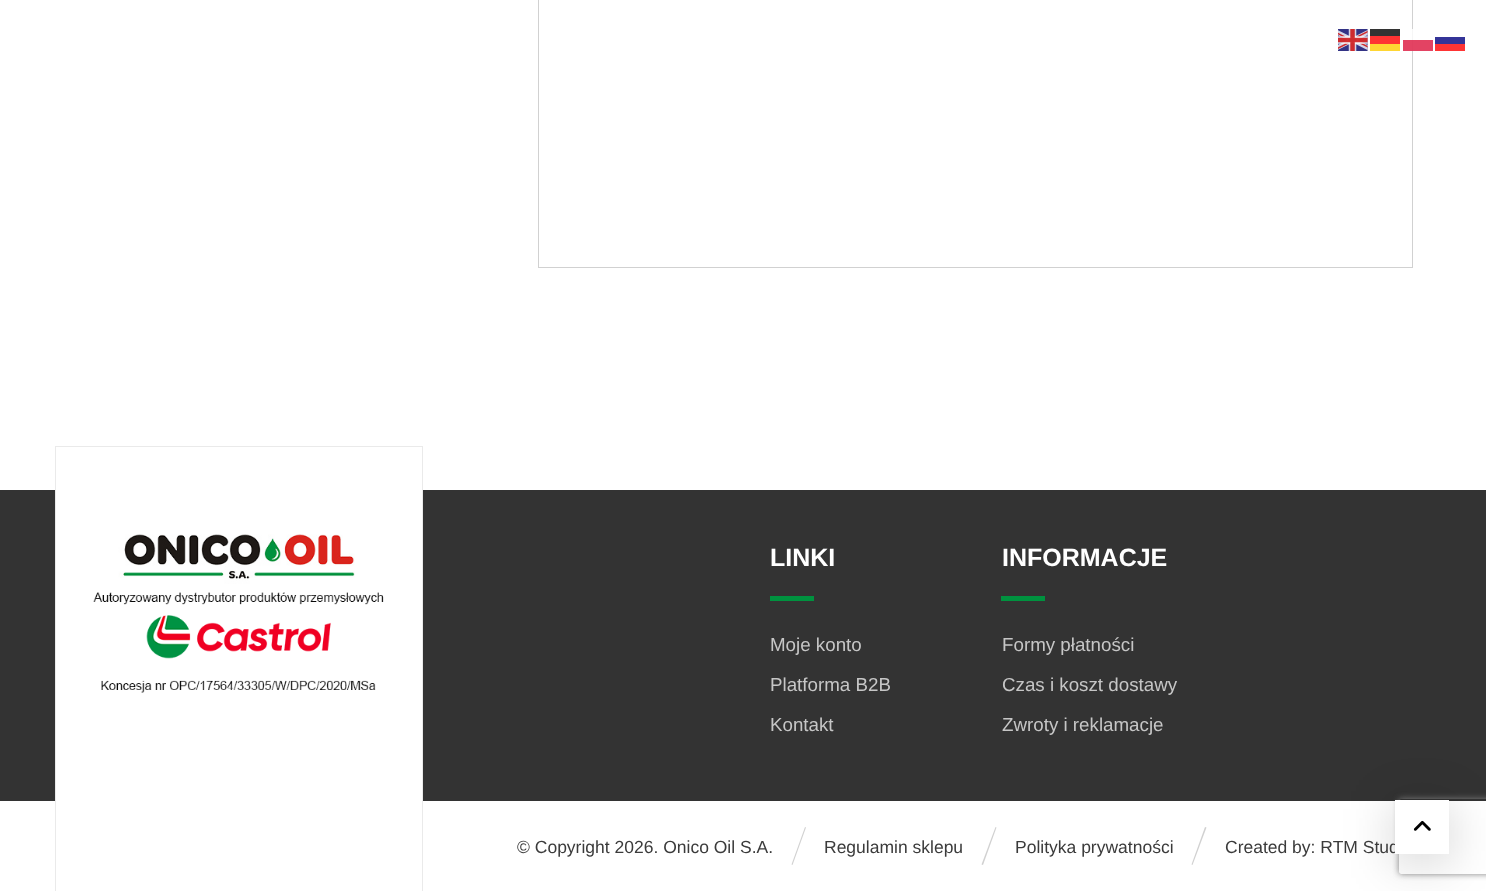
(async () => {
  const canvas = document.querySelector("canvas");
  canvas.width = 1486;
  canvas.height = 891;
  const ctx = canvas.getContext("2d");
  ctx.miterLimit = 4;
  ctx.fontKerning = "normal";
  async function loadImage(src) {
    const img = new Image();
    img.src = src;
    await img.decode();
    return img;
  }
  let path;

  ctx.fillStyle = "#ffffff";
  ctx.fillRect(0, 0, 1486, 891);
  ctx.strokeStyle = "#d1d1d1";
  ctx.strokeRect(538.5, -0.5, 874, 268);
  ctx.drawImage(await loadImage("img/1.png"), 1338, 29, 30, 22);
  for (const [x, y, w, h, color] of [
    [1370, 29, 30, 7, "#333333"],
    [1412, 29, 1, 22, "rgba(255, 255, 255, 0.8)"],
    [1370, 36, 30, 8, "#ff3333"],
    [1403, 40, 30, 11, "rgba(220, 20, 60, 0.8)"],
    [1435, 37, 30, 7, "#343498"],
    [1370, 44, 30, 7, "#ffd633"],
    [1435, 44, 30, 7, "#fe3434"],
    [0, 490, 1486, 311, "#333333"],
    [55, 490, 368, 311, "#ffffff"],
  ]) {
    ctx.fillStyle = color;
    ctx.fillRect(x, y, w, h);
  }
  ctx.strokeStyle = "#eaeaea";
  ctx.strokeRect(55.5, 446.5, 367, 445);
  ctx.drawImage(await loadImage("img/2.png"), 93, 534, 291, 159);
  ctx.fillStyle = "#00923f";
  ctx.fillRect(770, 596, 44, 5);
  ctx.fillRect(1001, 596, 44, 5);
  ctx.fillStyle = "#d1d1d1";
  path = new Path2D("M805 827L806 827.5L792.5 865L791.5 864.5Z");
  ctx.fill(path);
  path = new Path2D("M995.5 827L996.5 827.5L983 865L981.5 864.5Z");
  ctx.fill(path);
  path = new Path2D("M1205 827L1206.5 827.5L1192.5 865L1191.5 864.5Z");
  ctx.fill(path);
  ctx.fillStyle = "rgba(0, 0, 0, 0.2)";
  ctx.filter = "blur(25px)";
  ctx.beginPath();
  ctx.rect(1395, 808, 54, 53);
  ctx.fill();
  ctx.filter = "none";
  ctx.save();
  path = new Path2D("M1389 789H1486V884H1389ZM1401.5 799H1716.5C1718 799 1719 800 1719 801.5V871.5C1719 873 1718 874 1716.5 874H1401.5C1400 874 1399 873 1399 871.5V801.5C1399 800 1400 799 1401.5 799Z");
  ctx.clip(path, "evenodd");
  ctx.fillStyle = "#808080";
  ctx.filter = "blur(3px)";
  ctx.beginPath();
  ctx.roundRect(1399, 799, 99, 75, 2.5);
  ctx.fill();
  ctx.filter = "none";
  ctx.restore();
  ctx.font = "bold 25px Liberation Sans";
  ctx.fillStyle = "#ffffff";
  ctx.fillText("LINKI", 770, 566);
  ctx.font = "18.75px Liberation Sans";
  ctx.fillStyle = "#c6c6c6";
  for (const [text, x, y] of [
    ["Moje konto", 770, 651],
    ["Platforma B2B", 770, 691],
    ["Kontakt", 770, 731],
  ]) {
    ctx.fillText(text, x, y);
  }
  ctx.font = "bold 25px Liberation Sans";
  ctx.fillStyle = "#ffffff";
  ctx.fillText("INFORMACJE", 1002, 566);
  ctx.font = "18.75px Liberation Sans";
  ctx.fillStyle = "#c6c6c6";
  for (const [text, x, y] of [
    ["Formy płatności", 1002, 651],
    ["Czas i koszt dostawy", 1002, 691],
    ["Zwroty i reklamacje", 1002, 731],
  ]) {
    ctx.fillText(text, x, y);
  }
  ctx.font = "17.5px Liberation Sans";
  ctx.fillStyle = "#3b3b3b";
  for (const [text, x, y] of [
    ["© Copyright 2026. Onico Oil S.A.", 517, 853],
    ["Regulamin sklepu", 824, 853],
    ["Polityka prywatności", 1015, 853],
    ["Created by: RTM Stud", 1225, 853],
  ]) {
    ctx.fillText(text, x, y);
  }
  ctx.fillStyle = "#ffffff";
  ctx.fillRect(1395, 800, 54, 54);
  ctx.drawImage(await loadImage("img/3.png"), 1413, 820, 18, 11);
})();
